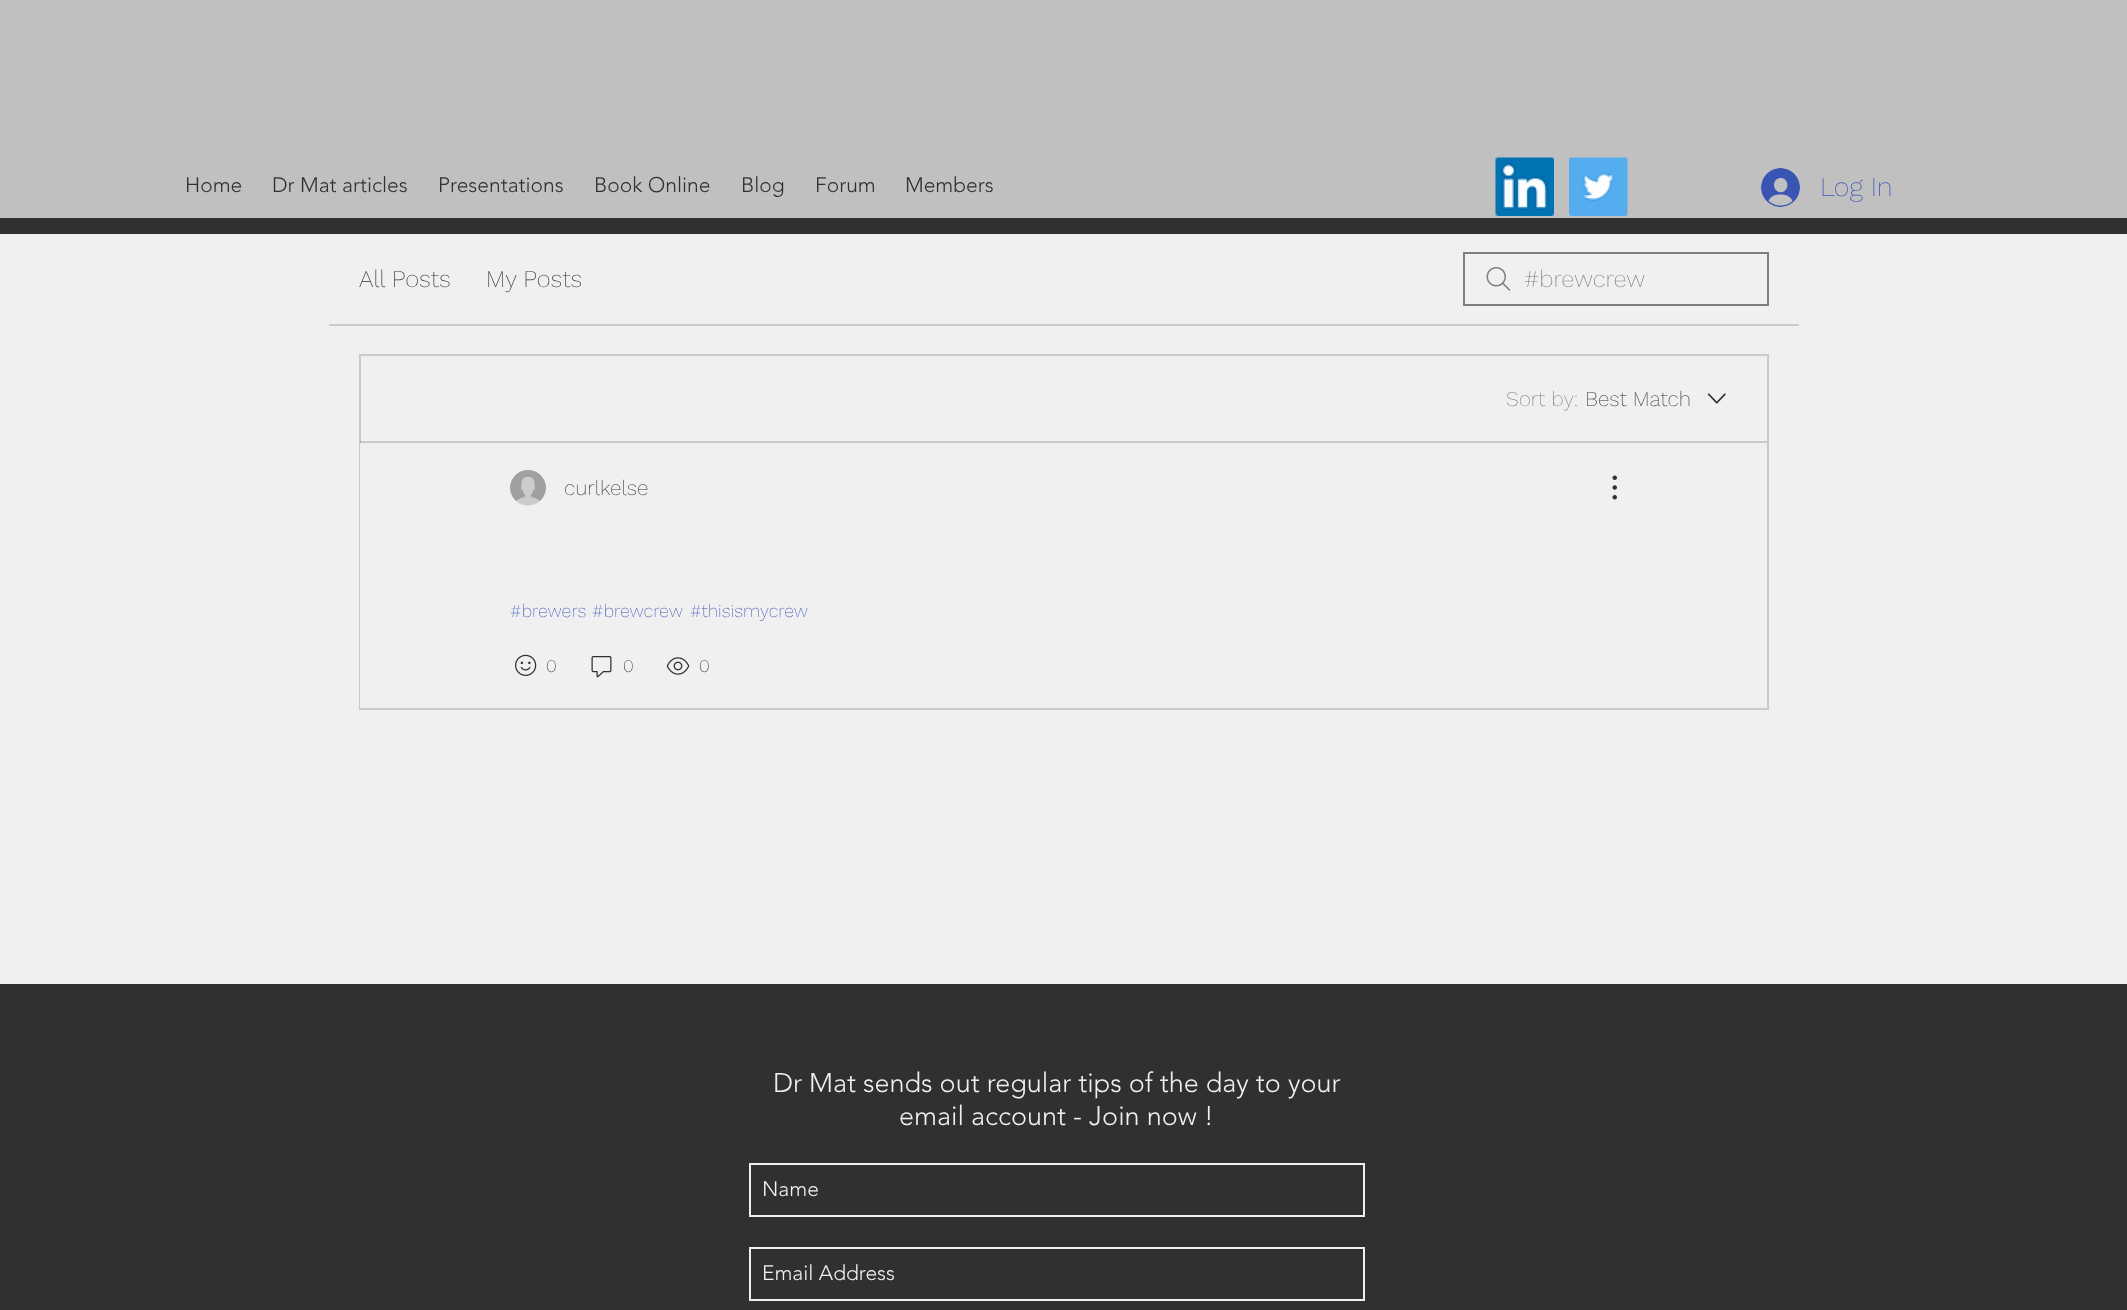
(async () => {
  const canvas = document.querySelector("canvas");
  canvas.width = 2127;
  canvas.height = 1310;
  const ctx = canvas.getContext("2d");
  ctx.miterLimit = 4;
  ctx.fontKerning = "normal";
  async function loadImage(src) {
    const img = new Image();
    img.src = src;
    await img.decode();
    return img;
  }

  ctx.fillStyle = "#f0f0f0";
  ctx.fillRect(0, 0, 2127, 1310);
  ctx.fillStyle = "#c0c0c0";
  ctx.fillRect(0, 0, 2127, 218);
  ctx.drawImage(await loadImage("img/1.png"), 1495, 157, 59, 59);
  ctx.drawImage(await loadImage("img/2.png"), 1569, 157, 59, 59);
  ctx.drawImage(await loadImage("img/3.png"), 1761, 168, 39, 39);
  ctx.fillStyle = "#303030";
  ctx.fillRect(0, 218, 2127, 16);
  ctx.fillStyle = "#cacaca";
  ctx.fillRect(329, 324, 1470, 2);
  ctx.drawImage(await loadImage("img/4.png"), 1486, 267, 25, 24);
  ctx.strokeStyle = "#7d7d7d";
  ctx.lineWidth = 2;
  ctx.strokeRect(1464, 253, 304, 52);
  ctx.strokeStyle = "#cacaca";
  ctx.strokeRect(360, 355, 1408, 354);
  ctx.drawImage(await loadImage("img/5.png"), 1707, 393, 19, 11);
  ctx.fillStyle = "rgba(48, 48, 48, 0.2)";
  ctx.fillRect(360, 441, 1407, 2);
  ctx.fillStyle = "#f0f0f0";
  ctx.fillRect(360, 443, 1, 265);
  ctx.drawImage(await loadImage("img/6.png"), 510, 470, 36, 36);
  ctx.drawImage(await loadImage("img/7.png"), 1612, 475, 5, 25);
  ctx.drawImage(await loadImage("img/8.png"), 515, 654, 22, 22);
  ctx.drawImage(await loadImage("img/9.png"), 591, 656, 21, 22);
  ctx.drawImage(await loadImage("img/10.png"), 666, 657, 24, 18);
  ctx.fillStyle = "#303030";
  ctx.fillRect(0, 984, 2127, 326);
  ctx.strokeStyle = "#f0f0f0";
  ctx.strokeRect(750, 1164, 614, 52);
  ctx.strokeRect(750, 1248, 614, 52);
  ctx.font = "300 21px 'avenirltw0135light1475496'";
  for (const [text, x, y] of [
    ["Home", 185, 192],
    ["Dr Mat articles", 272, 192],
    ["Presentations", 438, 192],
    ["Book Online", 594, 192],
    ["Blog", 741, 192],
    ["Forum", 815, 192],
    ["Members", 905, 192],
  ]) {
    ctx.fillText(text, x, y);
  }
  ctx.font = "200 27px Work Sans";
  ctx.fillStyle = "#3a54b4";
  ctx.fillText("Log In", 1820, 196);
  ctx.font = "200 24px Work Sans";
  ctx.fillStyle = "#303030";
  ctx.fillText("All Posts", 359, 287);
  ctx.fillText("My Posts", 486, 287);
  ctx.fillStyle = "#7d7d7d";
  ctx.fillText("#brewcrew", 1524, 287);
  ctx.font = "200 21px Work Sans";
  ctx.fillText("Sort by:", 1506, 406);
  ctx.fillStyle = "#303030";
  ctx.fillText("Best Match", 1585, 406);
  ctx.fillText("curlkelse", 564, 495);
  ctx.font = "200 18px Work Sans";
  ctx.fillStyle = "#3a54b4";
  for (const [text, x, y] of [
    ["#brewers", 510, 617],
    ["#brewcrew", 592, 617],
    ["#thisismycrew", 690, 617],
  ]) {
    ctx.fillText(text, x, y);
  }
  ctx.fillStyle = "#303030";
  for (const [text, x, y] of [
    ["0", 546, 672],
    ["0", 623, 672],
    ["0", 699, 672],
  ]) {
    ctx.fillText(text, x, y);
  }
  ctx.font = "300 27px 'avenirltw0135light1475496'";
  ctx.fillStyle = "#f0f0f0";
  ctx.fillText("Dr Mat sends out regular tips of the day to your", 773, 1092);
  ctx.fillText("email account - Join now !", 899, 1125);
  ctx.font = "300 21px 'avenirltw0135light1475496'";
  ctx.fillText("Name", 762, 1196);
  ctx.fillText("Email Address", 762, 1280);
})();
